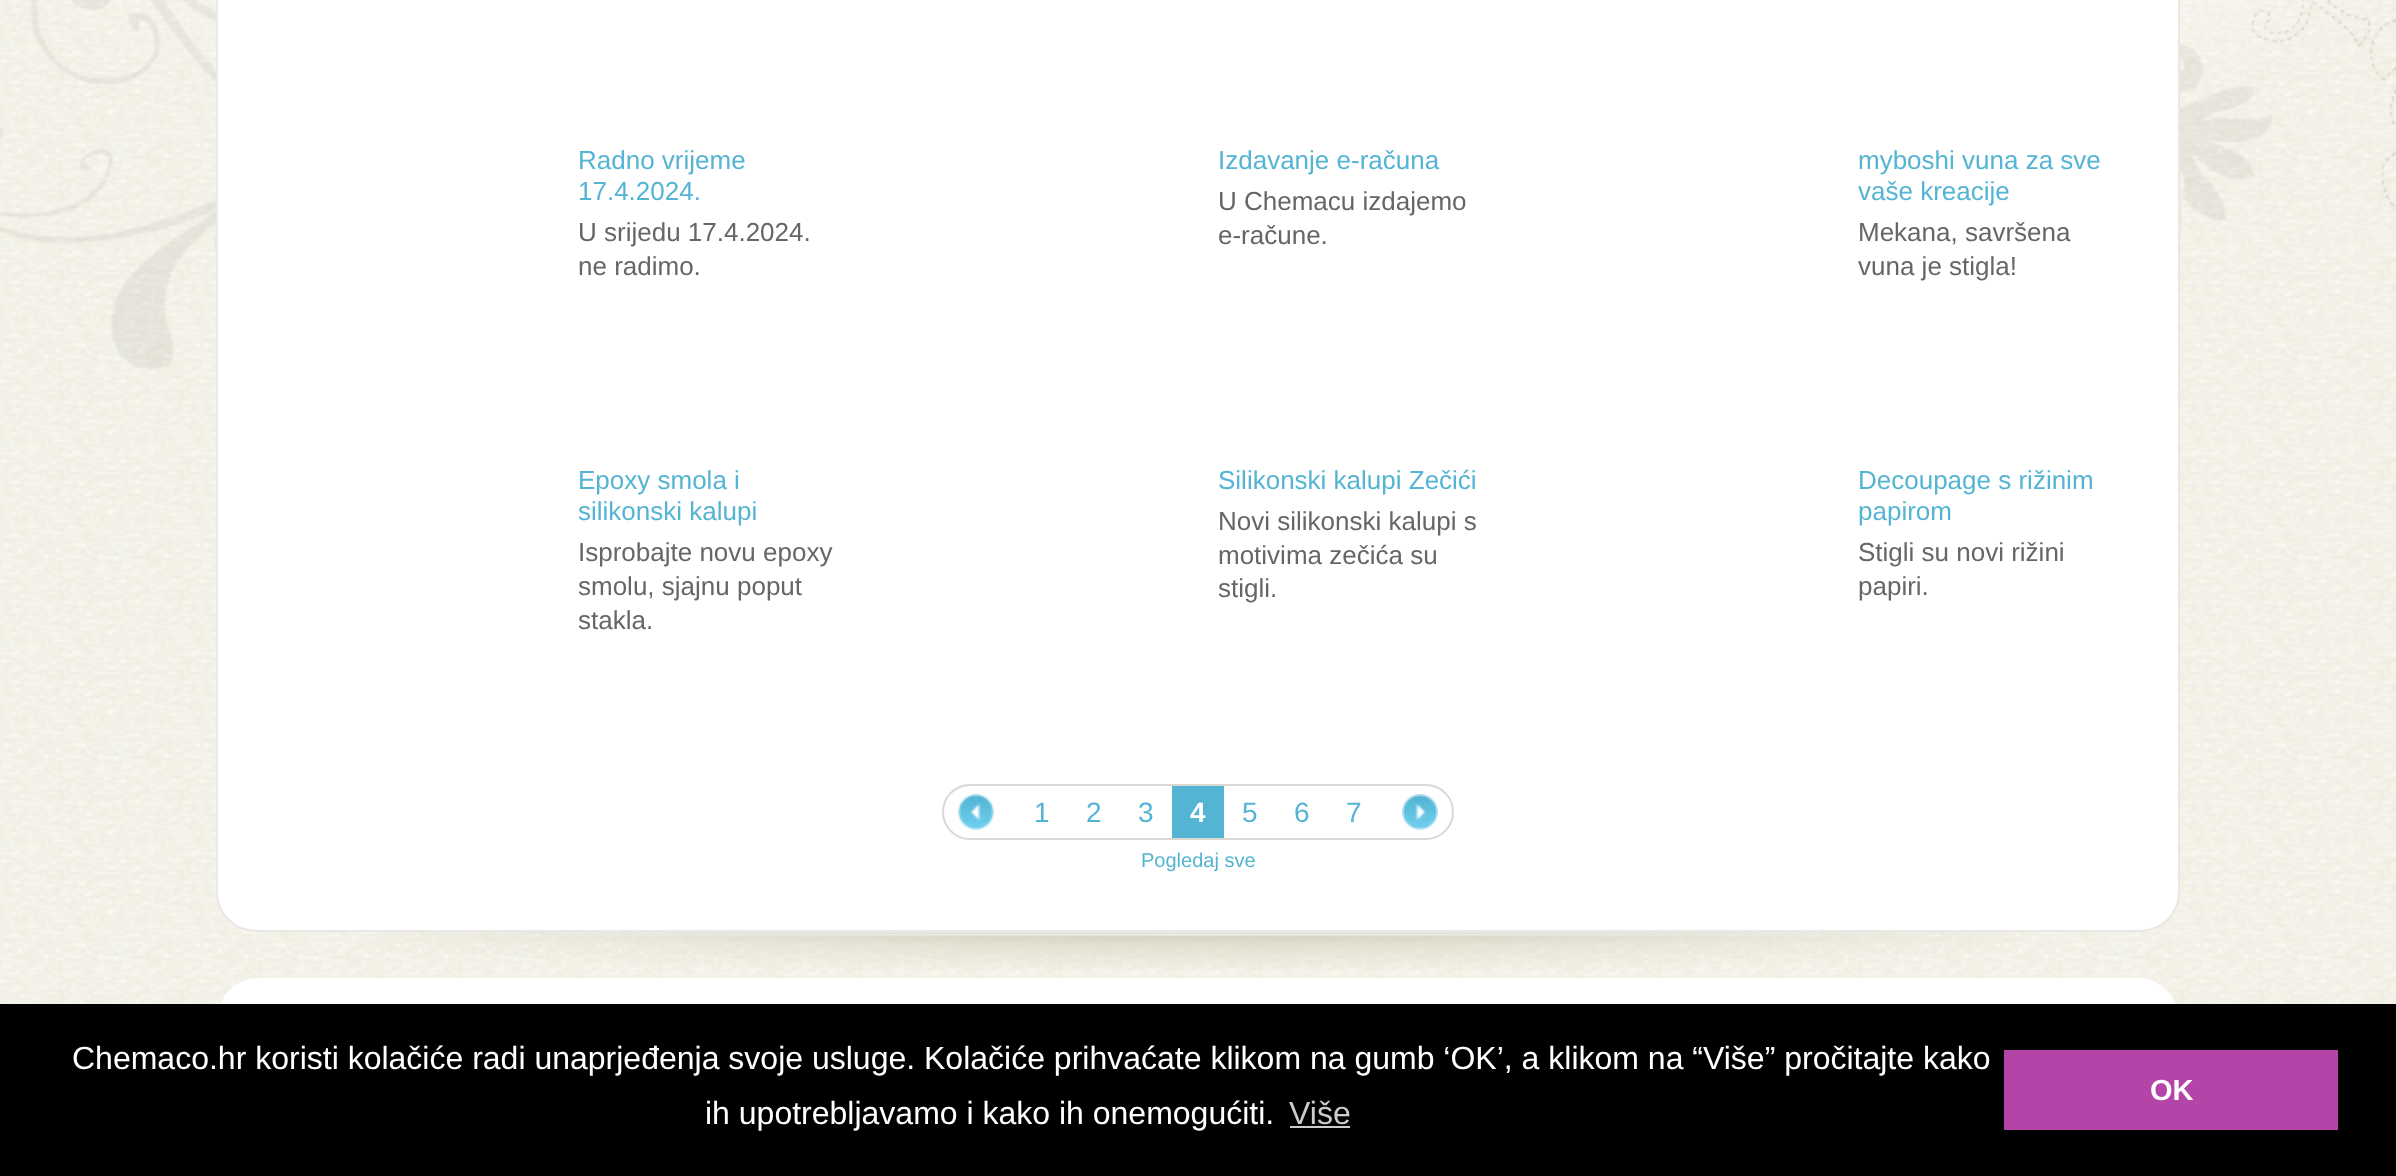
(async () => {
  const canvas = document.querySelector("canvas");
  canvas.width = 2396;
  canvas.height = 1176;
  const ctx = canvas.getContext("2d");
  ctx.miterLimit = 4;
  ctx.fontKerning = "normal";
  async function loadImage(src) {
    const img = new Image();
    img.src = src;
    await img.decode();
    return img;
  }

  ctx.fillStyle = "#ffffff";
  ctx.fillRect(0, 0, 2396, 1176);
  ctx.drawImage(await loadImage("img/1.png"), 0, 0, 2396, 1004);
  ctx.drawImage(await loadImage("img/2.png"), 0, 0, 2396, 370);
  ctx.drawImage(await loadImage("img/3.png"), 374, 932, 1644, 38);
  ctx.beginPath();
  ctx.roundRect(217, -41, 1962, 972, 39);
  ctx.fill();
  ctx.strokeStyle = "#e8e8e5";
  ctx.lineWidth = 2;
  ctx.stroke();
  ctx.beginPath();
  ctx.roundRect(943, 785, 510, 54, 27);
  ctx.strokeStyle = "#d9d8d2";
  ctx.stroke();
  ctx.drawImage(await loadImage("img/4.png"), 958, 794, 36, 36);
  ctx.fillStyle = "#54b4d3";
  ctx.fillRect(1172, 786, 52, 52);
  ctx.drawImage(await loadImage("img/5.png"), 1402, 794, 36, 36);
  ctx.fillStyle = "#ffffff";
  ctx.beginPath();
  ctx.roundRect(218, 978, 1960, 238, 40);
  ctx.fill();
  for (const [x, y, w, h, color] of [
    [0, 1004, 2396, 172, "#000000"],
    [1290, 1126, 60, 2, "#cccccc"],
    [2004, 1050, 334, 80, "#b345a8"],
  ]) {
    ctx.fillStyle = color;
    ctx.fillRect(x, y, w, h);
  }
  ctx.font = "26px Liberation Sans";
  ctx.fillStyle = "#54b4d3";
  ctx.fillText("Radno vrijeme", 578, 169);
  ctx.fillText("17.4.2024.", 578, 200);
  ctx.fillStyle = "#666666";
  ctx.fillText("U srijedu 17.4.2024.", 578, 241);
  ctx.fillText("ne radimo.", 578, 275);
  ctx.fillStyle = "#54b4d3";
  ctx.fillText("Izdavanje e-računa", 1218, 169);
  ctx.fillStyle = "#666666";
  ctx.fillText("U Chemacu izdajemo", 1218, 210);
  ctx.fillText("e-račune.", 1218, 244);
  ctx.fillStyle = "#54b4d3";
  ctx.fillText("myboshi vuna za sve", 1858, 169);
  ctx.fillText("vaše kreacije", 1858, 200);
  ctx.fillStyle = "#666666";
  ctx.fillText("Mekana, savršena", 1858, 241);
  ctx.fillText("vuna je stigla!", 1858, 275);
  ctx.fillStyle = "#54b4d3";
  ctx.fillText("Epoxy smola i", 578, 489);
  ctx.fillText("silikonski kalupi", 578, 520);
  ctx.fillStyle = "#666666";
  for (const [text, x, y] of [
    ["Isprobajte novu epoxy", 578, 561],
    ["smolu, sjajnu poput", 578, 595],
    ["stakla.", 578, 629],
  ]) {
    ctx.fillText(text, x, y);
  }
  ctx.fillStyle = "#54b4d3";
  ctx.fillText("Silikonski kalupi Zečići", 1218, 489);
  ctx.fillStyle = "#666666";
  for (const [text, x, y] of [
    ["Novi silikonski kalupi s", 1218, 530],
    ["motivima zečića su", 1218, 564],
    ["stigli.", 1218, 597],
  ]) {
    ctx.fillText(text, x, y);
  }
  ctx.fillStyle = "#54b4d3";
  ctx.fillText("Decoupage s rižinim", 1858, 489);
  ctx.fillText("papirom", 1858, 520);
  ctx.fillStyle = "#666666";
  ctx.fillText("Stigli su novi rižini", 1858, 561);
  ctx.fillText("papiri.", 1858, 595);
  ctx.font = "28px Liberation Sans";
  ctx.fillStyle = "#54b4d3";
  for (const [text, x, y] of [
    ["1", 1034, 822],
    ["2", 1086, 822],
    ["3", 1138, 822],
  ]) {
    ctx.fillText(text, x, y);
  }
  ctx.font = "bold 28px Liberation Sans";
  ctx.fillStyle = "#ffffff";
  ctx.fillText("4", 1190, 822);
  ctx.font = "28px Liberation Sans";
  ctx.fillStyle = "#54b4d3";
  for (const [text, x, y] of [
    ["5", 1242, 822],
    ["6", 1294, 822],
    ["7", 1346, 822],
  ]) {
    ctx.fillText(text, x, y);
  }
  ctx.font = "20px Liberation Sans";
  ctx.fillText("Pogledaj sve", 1141, 867);
  ctx.font = "32px Liberation Sans";
  ctx.fillStyle = "#ffffff";
  ctx.fillText("Chemaco.hr koristi kolačiće radi unaprjeđenja svoje usluge. Kolačiće prihvaćate klikom na gumb ‘OK’, a klikom na “Više” pročitajte kako", 72, 1069);
  ctx.fillText("ih upotrebljavamo i kako ih onemogućiti.", 705, 1124);
  ctx.fillStyle = "#cccccc";
  ctx.fillText("Više", 1289, 1124);
  ctx.font = "bold 29px Liberation Sans";
  ctx.fillStyle = "#ffffff";
  ctx.fillText("OK", 2150, 1100);
})();
